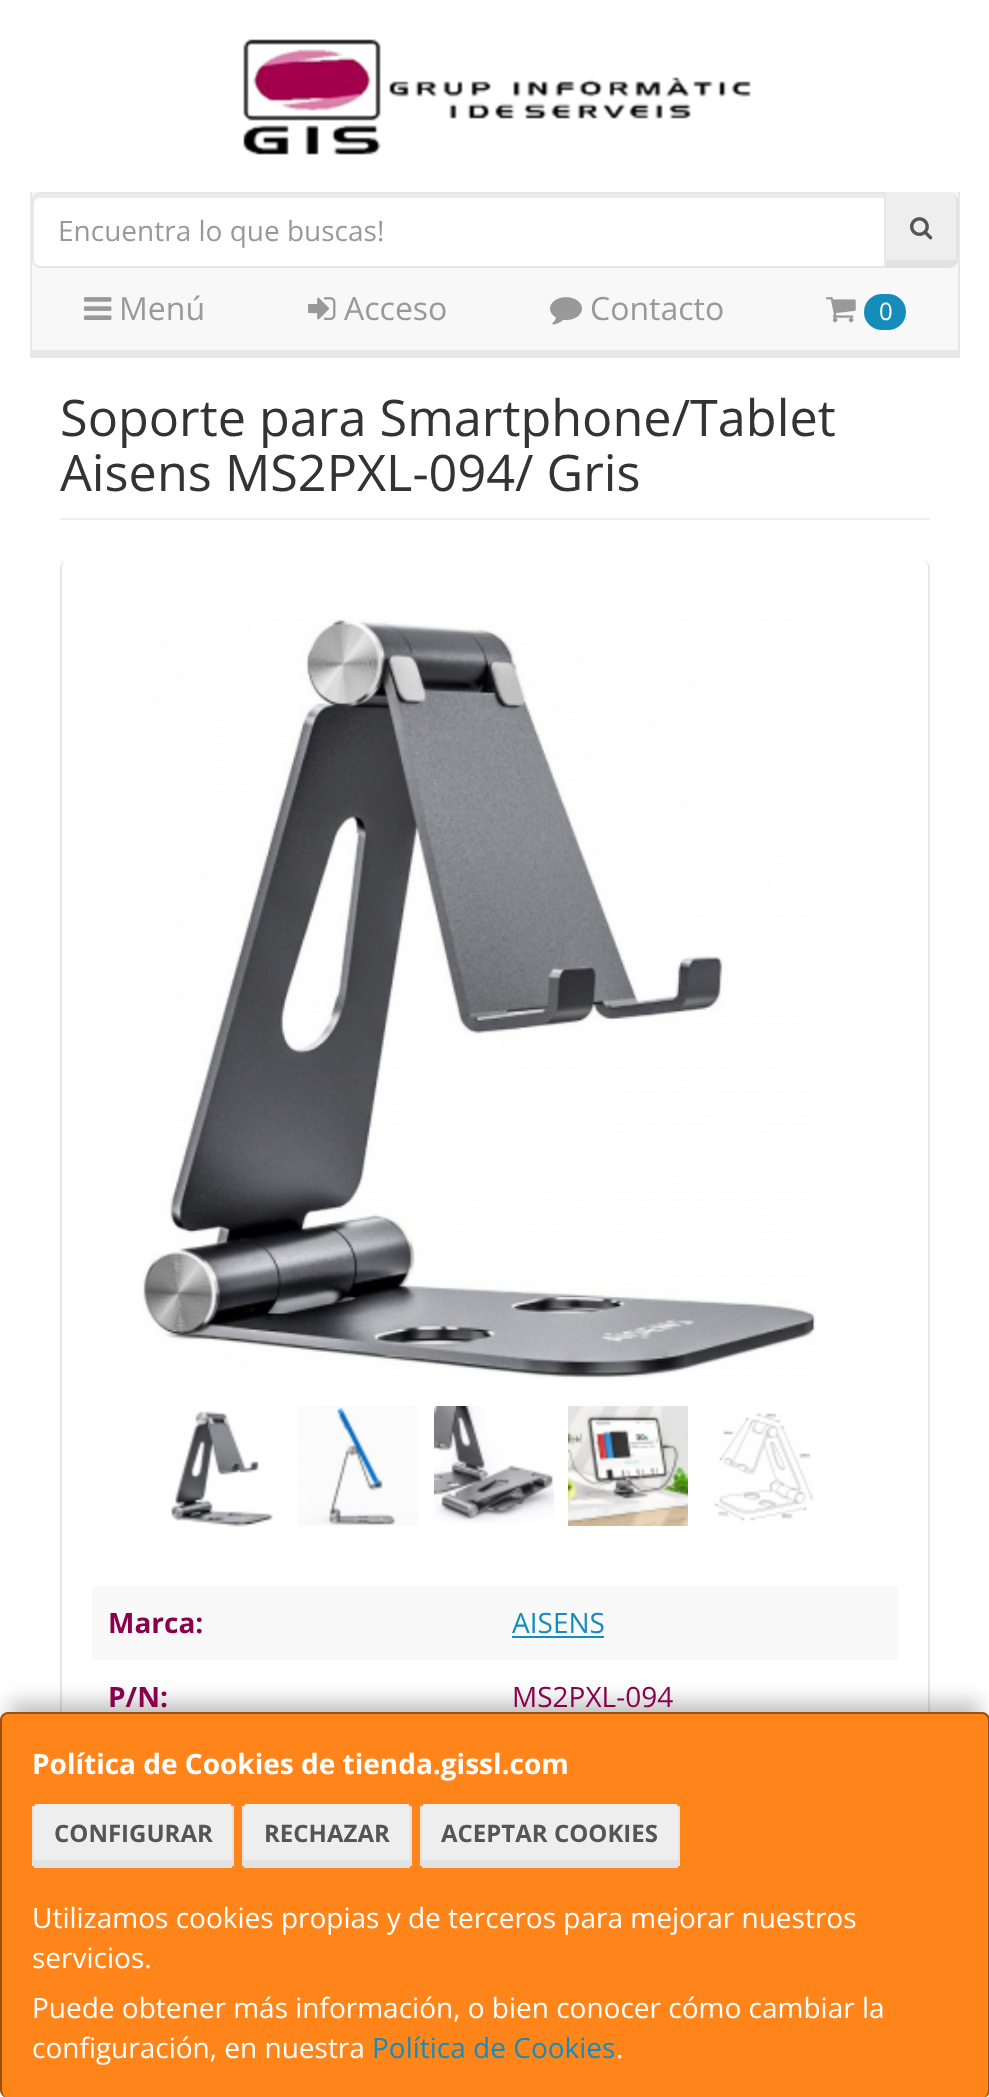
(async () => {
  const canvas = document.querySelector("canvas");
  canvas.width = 989;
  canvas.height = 2097;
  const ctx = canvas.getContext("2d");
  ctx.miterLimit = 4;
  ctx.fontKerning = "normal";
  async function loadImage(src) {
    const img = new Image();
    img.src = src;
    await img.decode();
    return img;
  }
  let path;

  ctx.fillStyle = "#ffffff";
  ctx.fillRect(0, 0, 989, 2097);
  ctx.drawImage(await loadImage("img/1.png"), 243, 39, 508, 116);
  for (const [x, y, w, h, color] of [
    [32, 192, 926, 158, "#f8f8f8"],
    [958, 192, 2, 166, "#e7e7e7"],
    [30, 350, 930, 8, "#e7e7e7"],
    [30, 192, 2, 166, "#e7e7e7"],
  ]) {
    ctx.fillStyle = color;
    ctx.fillRect(x, y, w, h);
  }
  ctx.fillStyle = "#eeeeee";
  path = new Path2D("M886 192H950C953 192 956 196 956 200V260H886Z");
  ctx.fill(path);
  ctx.fillStyle = "#e2e2e2";
  path = new Path2D("M884 192H950C954 192 958 196 958 200V260C958 264 954 268 950 268H884ZM886 192H950C953 192 956 196 956 200V260H886Z");
  ctx.fill(path, "evenodd");
  ctx.fillStyle = "#ffffff";
  ctx.beginPath();
  ctx.roundRect(32, 192, 854, 76, [8, 0, 0, 8]);
  ctx.fill();
  ctx.fillStyle = "#ececec";
  path = new Path2D("M40 198H884V194H40C37 194 34 197 34 200V204C34 201 37 198 40 198Z");
  ctx.fill(path);
  ctx.beginPath();
  ctx.roundRect(33, 193, 852, 74, [7, 0, 0, 7]);
  ctx.strokeStyle = "#e7e7e7";
  ctx.lineWidth = 2;
  ctx.stroke();
  ctx.drawImage(await loadImage("img/2.png"), 910, 217, 23, 23);
  ctx.drawImage(await loadImage("img/3.png"), 84, 297, 28, 23);
  ctx.drawImage(await loadImage("img/4.png"), 308, 297, 28, 23);
  ctx.drawImage(await loadImage("img/5.png"), 550, 297, 32, 28);
  ctx.drawImage(await loadImage("img/6.png"), 826, 297, 30, 26);
  ctx.fillStyle = "#158cba";
  ctx.beginPath();
  ctx.roundRect(864, 294, 42, 36, 18);
  ctx.fill();
  ctx.fillStyle = "#eeeeee";
  ctx.fillRect(60, 518, 870, 2);
  ctx.fillStyle = "#e7e7e7";
  path = new Path2D("M68 560H922C926 560 930 564 930 568V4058C930 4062 926 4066 922 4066H68C64 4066 60 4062 60 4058V568C60 564 64 560 68 560ZM68 560H922C925 560 928 564 928 568V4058H62V568C62 564 65 560 68 560Z");
  ctx.fill(path, "evenodd");
  ctx.drawImage(await loadImage("img/7.png"), 142, 619, 675, 760);
  ctx.drawImage(await loadImage("img/8.png"), 170, 1411, 103, 116);
  ctx.drawImage(await loadImage("img/9.png"), 298, 1406, 120, 120);
  ctx.drawImage(await loadImage("img/10.png"), 434, 1406, 120, 117);
  ctx.drawImage(await loadImage("img/11.png"), 568, 1406, 120, 120);
  ctx.drawImage(await loadImage("img/12.png"), 713, 1413, 101, 108);
  ctx.fillStyle = "#f9f9f9";
  ctx.fillRect(92, 1586, 806, 74);
  ctx.fillStyle = "#158cba";
  ctx.fillRect(512, 1636, 92, 2);
  ctx.fillStyle = "rgba(0, 0, 0, 0.25)";
  ctx.filter = "blur(10px)";
  ctx.beginPath();
  ctx.rect(10, 1702, 970, 366);
  ctx.fill();
  ctx.filter = "none";
  ctx.fillStyle = "#ff851b";
  ctx.beginPath();
  ctx.roundRect(0, 1712, 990, 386, 8);
  ctx.fill();
  ctx.fillStyle = "rgba(0, 0, 0, 0.4)";
  path = new Path2D("M8 1712H982C986 1712 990 1716 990 1720V2090C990 2094 986 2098 982 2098H8C4 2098 0 2094 0 2090V1720C0 1716 4 1712 8 1712ZM8 1714H982C985 1714 988 1717 988 1720V2090C988 2094 985 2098 982 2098H8C5 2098 2 2094 2 2090V1720C2 1717 5 1714 8 1714Z");
  ctx.fill(path, "evenodd");
  ctx.fillStyle = "#eeeeee";
  path = new Path2D("M36 1804H230C231 1804 232 1806 232 1808V1860H34V1808C34 1806 35 1804 36 1804Z");
  ctx.fill(path);
  for (const [x, y, w, h, color] of [
    [232, 1806, 2, 60, "#e2e2e2"],
    [34, 1860, 198, 8, "#e2e2e2"],
    [32, 1806, 2, 60, "#e2e2e2"],
  ]) {
    ctx.fillStyle = color;
    ctx.fillRect(x, y, w, h);
  }
  ctx.fillStyle = "#eeeeee";
  path = new Path2D("M246 1804H408C409 1804 410 1806 410 1808V1860H244V1808C244 1806 245 1804 246 1804Z");
  ctx.fill(path);
  for (const [x, y, w, h, color] of [
    [410, 1806, 2, 60, "#e2e2e2"],
    [244, 1860, 166, 8, "#e2e2e2"],
    [242, 1806, 2, 60, "#e2e2e2"],
  ]) {
    ctx.fillStyle = color;
    ctx.fillRect(x, y, w, h);
  }
  ctx.fillStyle = "#eeeeee";
  path = new Path2D("M424 1804H676C677 1804 678 1806 678 1808V1860H422V1808C422 1806 423 1804 424 1804Z");
  ctx.fill(path);
  for (const [x, y, w, h, color] of [
    [678, 1806, 2, 60, "#e2e2e2"],
    [422, 1860, 256, 8, "#e2e2e2"],
    [420, 1806, 2, 60, "#e2e2e2"],
  ]) {
    ctx.fillStyle = color;
    ctx.fillRect(x, y, w, h);
  }
  ctx.font = "28px Open Sans";
  ctx.fillStyle = "#999999";
  ctx.fillText("Encuentra lo que buscas!", 58, 241);
  ctx.font = "32px Open Sans";
  for (const [text, x, y] of [
    ["Menú", 119, 320],
    ["Acceso", 344, 320],
    ["Contacto", 590, 320],
  ]) {
    ctx.fillText(text, x, y);
  }
  ctx.font = "24px Open Sans";
  ctx.fillStyle = "#ffffff";
  ctx.fillText("0", 879, 320);
  ctx.font = "50.4px Open Sans";
  ctx.fillStyle = "#333333";
  ctx.fillText("Soporte para Smartphone/Tablet", 60, 436);
  ctx.fillText("Aisens MS2PXL-094/ Gris", 60, 491);
  ctx.font = "bold 28px Open Sans";
  ctx.fillStyle = "#8a004d";
  ctx.fillText("Marca:", 108, 1633);
  ctx.font = "28px Open Sans";
  ctx.fillStyle = "#158cba";
  ctx.fillText("AISENS", 512, 1633);
  ctx.font = "bold 28px Open Sans";
  ctx.fillStyle = "#8a004d";
  ctx.fillText("P/N:", 108, 1707);
  ctx.font = "28px Open Sans";
  ctx.fillText("MS2PXL-094", 512, 1707);
  ctx.font = "bold 28px Open Sans";
  ctx.fillStyle = "#ffffff";
  ctx.fillText("Política de Cookies de tienda.gissl.com", 32, 1774);
  ctx.font = "bold 24px Open Sans";
  ctx.fillStyle = "#555555";
  for (const [text, x, y] of [
    ["CONFIGURAR", 54, 1842],
    ["RECHAZAR", 264, 1842],
    ["ACEPTAR COOKIES", 441, 1842],
  ]) {
    ctx.fillText(text, x, y);
  }
  ctx.font = "28px Open Sans";
  ctx.fillStyle = "#ffffff";
  for (const [text, x, y] of [
    ["Utilizamos cookies propias y de terceros para mejorar nuestros", 32, 1928],
    ["servicios.", 32, 1968],
    ["Puede obtener más información, o bien conocer cómo cambiar la", 32, 2018],
    ["configuración, en nuestra", 32, 2058],
  ]) {
    ctx.fillText(text, x, y);
  }
  ctx.fillStyle = "#158cba";
  ctx.fillText("Política de Cookies", 372, 2058);
  ctx.fillStyle = "#ffffff";
  ctx.fillText(".", 616, 2058);
})();
